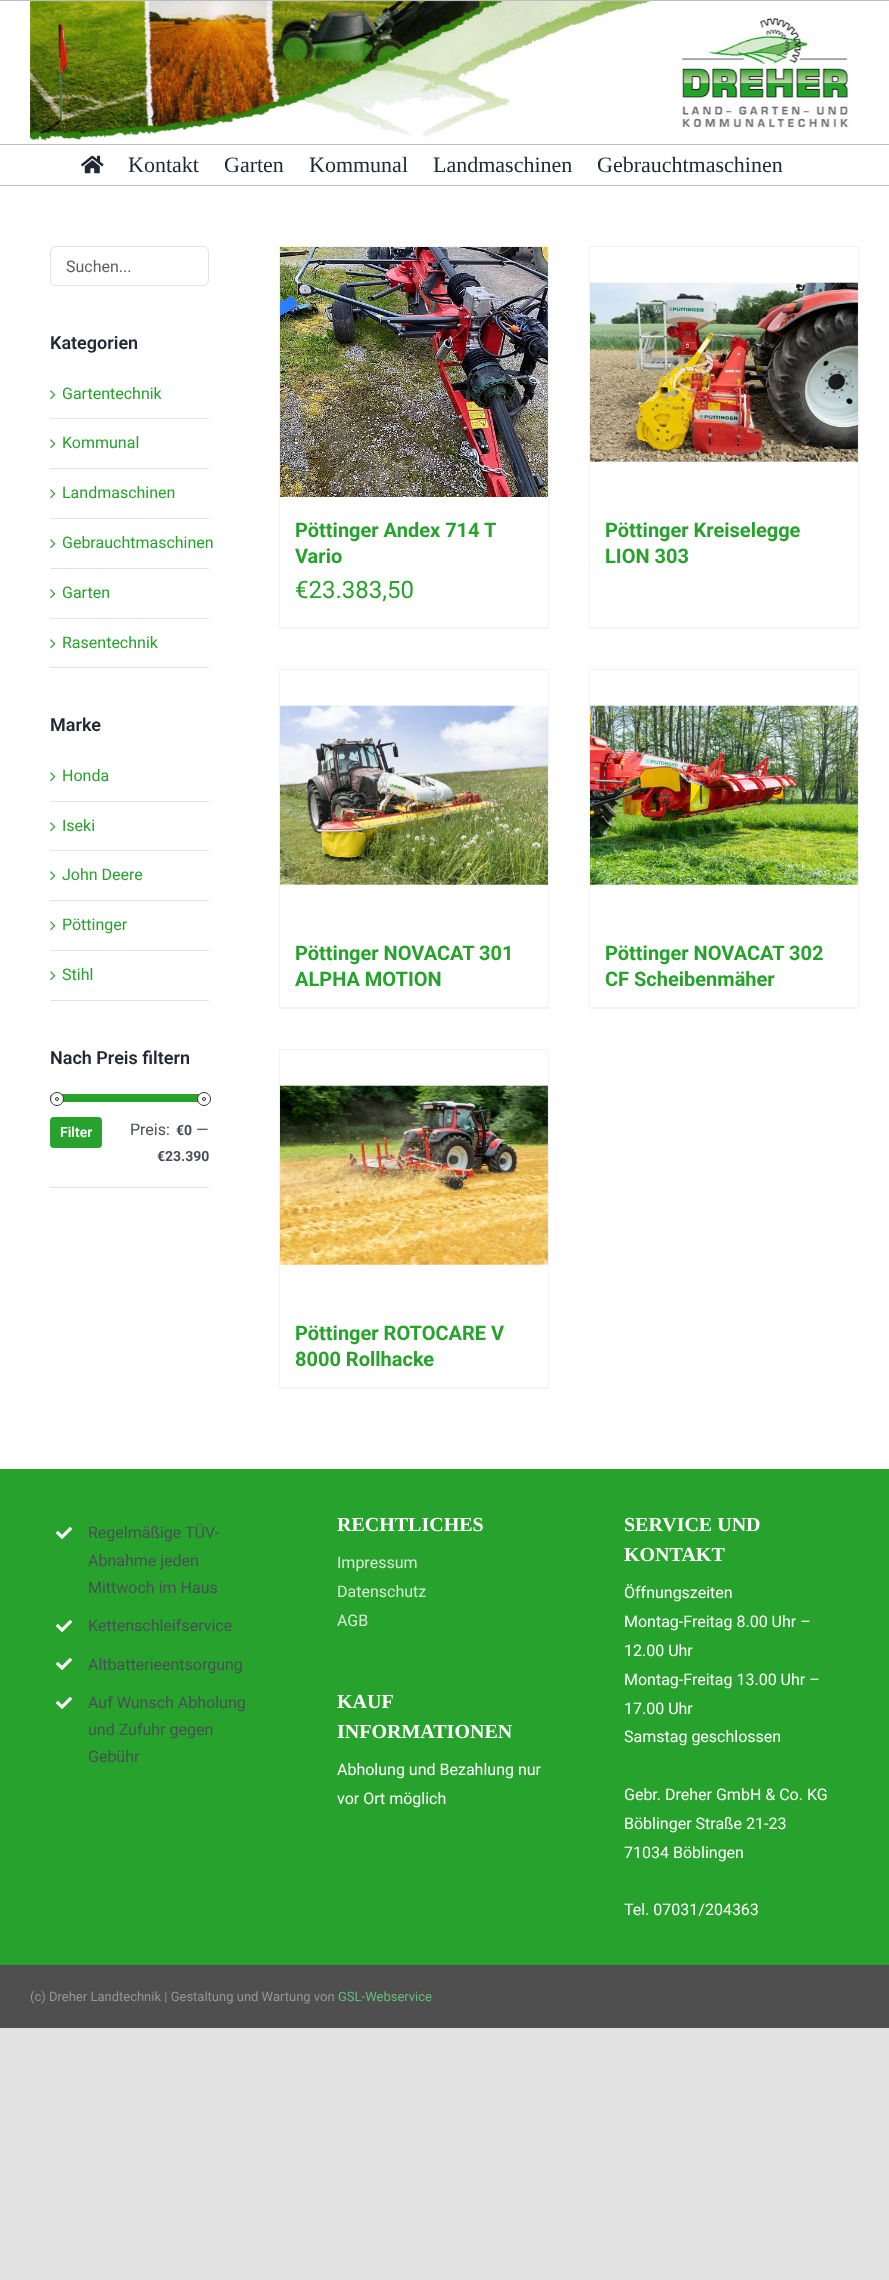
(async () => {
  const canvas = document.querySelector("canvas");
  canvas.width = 889;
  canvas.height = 2280;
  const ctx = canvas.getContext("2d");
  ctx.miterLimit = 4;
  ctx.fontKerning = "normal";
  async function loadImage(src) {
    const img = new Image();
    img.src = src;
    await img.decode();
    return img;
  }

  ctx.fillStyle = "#e2e2e2";
  ctx.fillRect(0, 0, 889, 2280);
  for (const [x, y, w, h, color] of [
    [0, 1, 889, 1468, "#ffffff"],
    [0, 0, 889, 1, "#bcbcbc"],
    [0, 144, 889, 1, "#bcbcbc"],
  ]) {
    ctx.fillStyle = color;
    ctx.fillRect(x, y, w, h);
  }
  ctx.drawImage(await loadImage("img/1.png"), 30, 1, 820, 140);
  ctx.fillRect(0, 185, 889, 1);
  ctx.drawImage(await loadImage("img/2.png"), 81, 155, 23, 19);
  ctx.beginPath();
  ctx.roundRect(50.5, 246.5, 158, 39, 5.5);
  ctx.strokeStyle = "#e2e2e2";
  ctx.stroke();
  ctx.fillStyle = "#e2e2e2";
  ctx.fillRect(50, 418, 159, 1);
  ctx.drawImage(await loadImage("img/3.png"), 50, 390, 6, 10);
  ctx.fillRect(50, 468, 159, 1);
  ctx.drawImage(await loadImage("img/3.png"), 50, 439, 6, 10);
  ctx.fillRect(50, 518, 159, 1);
  ctx.drawImage(await loadImage("img/3.png"), 50, 489, 6, 10);
  ctx.fillRect(50, 568, 159, 1);
  ctx.drawImage(await loadImage("img/3.png"), 50, 539, 6, 10);
  ctx.fillRect(50, 618, 159, 1);
  ctx.drawImage(await loadImage("img/3.png"), 50, 589, 6, 10);
  ctx.fillRect(50, 667, 159, 1);
  ctx.drawImage(await loadImage("img/3.png"), 50, 639, 6, 10);
  ctx.fillRect(50, 801, 159, 1);
  ctx.drawImage(await loadImage("img/3.png"), 50, 772, 6, 10);
  ctx.fillRect(50, 850, 159, 1);
  ctx.drawImage(await loadImage("img/3.png"), 50, 822, 6, 10);
  ctx.fillRect(50, 900, 159, 1);
  ctx.drawImage(await loadImage("img/3.png"), 50, 871, 6, 10);
  ctx.fillRect(50, 950, 159, 1);
  ctx.drawImage(await loadImage("img/3.png"), 50, 921, 6, 10);
  ctx.fillRect(50, 1000, 159, 1);
  ctx.drawImage(await loadImage("img/3.png"), 50, 971, 6, 10);
  ctx.fillRect(50, 1187, 159, 1);
  ctx.fillStyle = "#27a22d";
  ctx.beginPath();
  ctx.roundRect(50, 1094, 159, 8, 4);
  ctx.fill();
  ctx.fillStyle = "#ffffff";
  ctx.beginPath();
  ctx.arc(57, 1099, 6.5, 0, Math.PI * 2);
  ctx.fill();
  ctx.strokeStyle = "#333333";
  ctx.stroke();
  ctx.beginPath();
  ctx.arc(57, 1099, 1.5, 0, Math.PI * 2);
  ctx.stroke();
  ctx.beginPath();
  ctx.arc(204, 1099, 6.5, 0, Math.PI * 2);
  ctx.fill();
  ctx.stroke();
  ctx.beginPath();
  ctx.arc(204, 1099, 1.5, 0, Math.PI * 2);
  ctx.stroke();
  ctx.fillStyle = "#27a22d";
  ctx.beginPath();
  ctx.roundRect(50, 1117, 52, 31, 4);
  ctx.fill();
  for (const [x, y, w, h, color] of [
    [279, 246, 270, 1, "#f2f3f5"],
    [548, 246, 1, 383, "#f2f3f5"],
    [279, 627, 270, 2, "#f2f3f5"],
    [279, 246, 1, 383, "#f2f3f5"],
  ]) {
    ctx.fillStyle = color;
    ctx.fillRect(x, y, w, h);
  }
  ctx.drawImage(await loadImage("img/4.png"), 280, 247, 268, 250);
  for (const [x, y, w, h, color] of [
    [589, 246, 270, 1, "#f2f3f5"],
    [858, 246, 1, 383, "#f2f3f5"],
    [589, 627, 270, 2, "#f2f3f5"],
    [589, 246, 1, 383, "#f2f3f5"],
  ]) {
    ctx.fillStyle = color;
    ctx.fillRect(x, y, w, h);
  }
  ctx.drawImage(await loadImage("img/5.png"), 590, 282, 268, 180);
  for (const [x, y, w, h, color] of [
    [279, 669, 270, 1, "#f2f3f5"],
    [548, 669, 1, 340, "#f2f3f5"],
    [279, 1007, 270, 2, "#f2f3f5"],
    [279, 669, 1, 340, "#f2f3f5"],
  ]) {
    ctx.fillStyle = color;
    ctx.fillRect(x, y, w, h);
  }
  ctx.drawImage(await loadImage("img/6.png"), 280, 705, 268, 180);
  for (const [x, y, w, h, color] of [
    [589, 669, 270, 1, "#f2f3f5"],
    [858, 669, 1, 340, "#f2f3f5"],
    [589, 1007, 270, 2, "#f2f3f5"],
    [589, 669, 1, 340, "#f2f3f5"],
  ]) {
    ctx.fillStyle = color;
    ctx.fillRect(x, y, w, h);
  }
  ctx.drawImage(await loadImage("img/7.png"), 590, 705, 268, 180);
  for (const [x, y, w, h, color] of [
    [279, 1049, 270, 1, "#f2f3f5"],
    [548, 1049, 1, 340, "#f2f3f5"],
    [279, 1387, 270, 2, "#f2f3f5"],
    [279, 1049, 1, 340, "#f2f3f5"],
  ]) {
    ctx.fillStyle = color;
    ctx.fillRect(x, y, w, h);
  }
  ctx.drawImage(await loadImage("img/8.png"), 280, 1085, 268, 180);
  ctx.fillStyle = "#27a22d";
  ctx.fillRect(0, 1469, 889, 496);
  ctx.drawImage(await loadImage("img/9.png"), 56, 1527, 16, 12);
  ctx.drawImage(await loadImage("img/9.png"), 56, 1620, 16, 12);
  ctx.drawImage(await loadImage("img/9.png"), 56, 1658, 16, 12);
  ctx.drawImage(await loadImage("img/9.png"), 56, 1697, 16, 12);
  ctx.fillStyle = "#4f4f4f";
  ctx.fillRect(0, 1965, 889, 63);
  ctx.font = "22px Liberation Serif";
  ctx.fillStyle = "#212934";
  for (const [text, x, y] of [
    ["Kontakt", 128, 172],
    ["Garten", 224, 172],
    ["Kommunal", 309, 172],
    ["Landmaschinen", 433, 172],
    ["Gebrauchtmaschinen", 597, 172],
  ]) {
    ctx.fillText(text, x, y);
  }
  ctx.font = "16px Roboto";
  ctx.fillStyle = "#605d5d";
  ctx.fillText("Suchen...", 66, 272);
  ctx.font = "600 18px Roboto";
  ctx.fillStyle = "#212934";
  ctx.fillText("Kategorien", 50, 349);
  ctx.font = "16px Roboto";
  ctx.fillStyle = "#27a22d";
  for (const [text, x, y] of [
    ["Gartentechnik", 62, 399],
    ["Kommunal", 62, 448],
    ["Landmaschinen", 62, 498],
    ["Gebrauchtmaschinen", 62, 548],
    ["Garten", 62, 598],
    ["Rasentechnik", 62, 648],
  ]) {
    ctx.fillText(text, x, y);
  }
  ctx.font = "600 18px Roboto";
  ctx.fillStyle = "#212934";
  ctx.fillText("Marke", 50, 731);
  ctx.font = "16px Roboto";
  ctx.fillStyle = "#27a22d";
  for (const [text, x, y] of [
    ["Honda", 62, 781],
    ["Iseki", 62, 831],
    ["John Deere", 62, 880],
    ["Pöttinger", 62, 930],
    ["Stihl", 62, 980],
  ]) {
    ctx.fillText(text, x, y);
  }
  ctx.font = "600 18px Roboto";
  ctx.fillStyle = "#212934";
  ctx.fillText("Nach Preis filtern", 50, 1064);
  ctx.font = "600 14px Roboto";
  ctx.fillStyle = "#ffffff";
  ctx.fillText("Filter", 60, 1137);
  ctx.font = "16px Roboto";
  ctx.fillStyle = "#4a4e57";
  ctx.fillText("Preis:", 130, 1135);
  ctx.font = "bold 14px Roboto";
  ctx.fillText("€0", 176, 1135);
  ctx.font = "16px Roboto";
  ctx.fillText("—", 196, 1135);
  ctx.font = "bold 14px Roboto";
  ctx.fillText("€23.390", 157, 1161);
  ctx.font = "bold 20px Roboto";
  ctx.fillStyle = "#27a22d";
  ctx.fillText("Pöttinger Andex 714 T", 295, 537);
  ctx.fillText("Vario", 295, 563);
  ctx.font = "24px Roboto";
  ctx.fillText("€23.383,50", 295, 598);
  ctx.font = "bold 20px Roboto";
  for (const [text, x, y] of [
    ["Pöttinger Kreiselegge", 605, 537],
    ["LION 303", 605, 563],
    ["Pöttinger NOVACAT 301", 295, 960],
    ["ALPHA MOTION", 295, 986],
    ["Pöttinger NOVACAT 302", 605, 960],
    ["CF Scheibenmäher", 605, 986],
    ["Pöttinger ROTOCARE V", 295, 1340],
    ["8000 Rollhacke", 295, 1366],
  ]) {
    ctx.fillText(text, x, y);
  }
  ctx.font = "16px Roboto";
  ctx.fillStyle = "#4a4e57";
  for (const [text, x, y] of [
    ["Regelmäßige TÜV-", 88, 1538],
    ["Abnahme jeden", 88, 1566],
    ["Mittwoch im Haus", 88, 1593],
    ["Kettenschleifservice", 88, 1631],
    ["Altbatterieentsorgung", 88, 1670],
    ["Auf Wunsch Abholung", 88, 1708],
    ["und Zufuhr gegen", 88, 1735],
    ["Gebühr", 88, 1762],
  ]) {
    ctx.fillText(text, x, y);
  }
  ctx.font = "bold 20px Liberation Serif";
  ctx.fillStyle = "#ffffff";
  ctx.fillText("RECHTLICHES", 337, 1531);
  ctx.font = "16px Roboto";
  ctx.fillStyle = "#d4ecd5";
  for (const [text, x, y] of [
    ["Impressum", 337, 1568],
    ["Datenschutz", 337, 1597],
    ["AGB", 337, 1626],
  ]) {
    ctx.fillText(text, x, y);
  }
  ctx.font = "bold 20px Liberation Serif";
  ctx.fillStyle = "#ffffff";
  ctx.fillText("KAUF", 337, 1708);
  ctx.fillText("INFORMATIONEN", 337, 1738);
  ctx.font = "16px Roboto";
  ctx.fillText("Abholung und Bezahlung nur", 337, 1775);
  ctx.fillText("vor Ort möglich", 337, 1804);
  ctx.font = "bold 20px Liberation Serif";
  ctx.fillText("SERVICE UND", 624, 1531);
  ctx.fillText("KONTAKT", 624, 1561);
  ctx.font = "16px Roboto";
  for (const [text, x, y] of [
    ["Öffnungszeiten", 624, 1598],
    ["Montag-Freitag 8.00 Uhr –", 624, 1627],
    ["12.00 Uhr", 624, 1656],
    ["Montag-Freitag 13.00 Uhr –", 624, 1685],
    ["17.00 Uhr", 624, 1714],
    ["Samstag geschlossen", 624, 1742],
    ["Gebr. Dreher GmbH & Co. KG", 624, 1800],
    ["Böblinger Straße 21-23", 624, 1829],
    ["71034 Böblingen", 624, 1858],
    ["Tel. 07031/204363", 624, 1915],
  ]) {
    ctx.fillText(text, x, y);
  }
  ctx.font = "13px Roboto";
  ctx.fillStyle = "#959595";
  ctx.fillText("(c) Dreher Landtechnik | Gestaltung und Wartung von", 30, 2001);
  ctx.fillStyle = "#65bc7b";
  ctx.fillText("GSL-Webservice", 338, 2001);
})();
